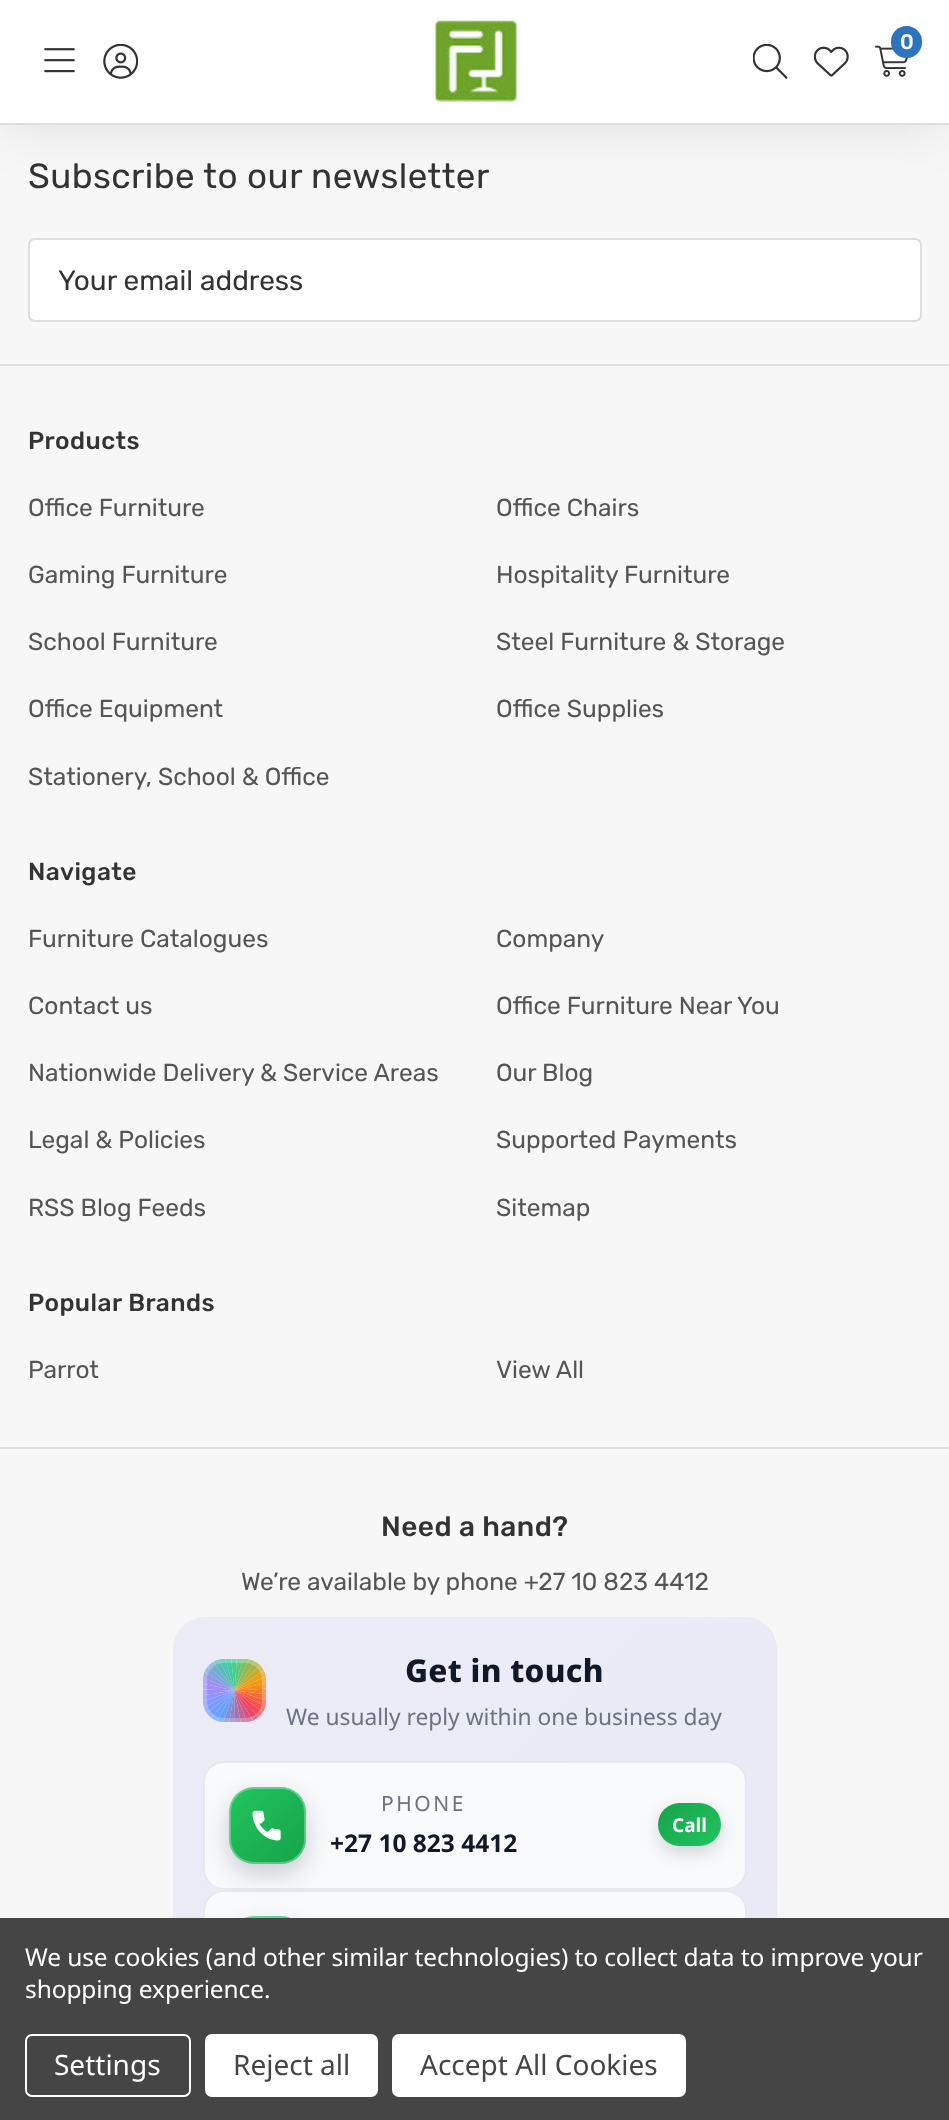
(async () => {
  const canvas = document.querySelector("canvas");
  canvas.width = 949;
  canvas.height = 2120;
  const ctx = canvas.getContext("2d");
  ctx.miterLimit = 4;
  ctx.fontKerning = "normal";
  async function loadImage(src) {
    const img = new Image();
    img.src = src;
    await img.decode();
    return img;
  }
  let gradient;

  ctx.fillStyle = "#f7f7f7";
  ctx.fillRect(0, 0, 949, 2120);
  ctx.fillStyle = "rgba(0, 0, 0, 0.1)";
  ctx.filter = "blur(28px)";
  ctx.beginPath();
  ctx.rect(0, 0, 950, 124);
  ctx.fill();
  ctx.filter = "none";
  ctx.fillStyle = "#ffffff";
  ctx.fillRect(0, 0, 949, 123);
  ctx.fillStyle = "#dddddd";
  ctx.fillRect(0, 123, 949, 2);
  ctx.drawImage(await loadImage("img/1.png"), 432, 17, 85, 85);
  ctx.drawImage(await loadImage("img/2.png"), 875, 45, 33, 32);
  ctx.fillStyle = "#2d73bd";
  ctx.beginPath();
  ctx.roundRect(891, 26, 31, 32, 15.5);
  ctx.fill();
  ctx.drawImage(await loadImage("img/3.png"), 753, 44, 35, 35);
  ctx.drawImage(await loadImage("img/4.png"), 814, 46, 35, 31);
  ctx.drawImage(await loadImage("img/5.png"), 44, 48, 31, 25);
  ctx.drawImage(await loadImage("img/6.png"), 103, 44, 35, 35);
  ctx.fillStyle = "#ffffff";
  ctx.beginPath();
  ctx.roundRect(29, 239, 892, 82, 6);
  ctx.fill();
  ctx.strokeStyle = "#dddddd";
  ctx.lineWidth = 2;
  ctx.stroke();
  ctx.fillStyle = "#dddddd";
  ctx.fillRect(0, 364, 949, 2);
  ctx.fillRect(0, 1447, 949, 2);
  gradient = ctx.createLinearGradient(171, 1620, 780, 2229);
  gradient.addColorStop(0, "rgba(99, 102, 241, 0.08)");
  gradient.addColorStop(1, "rgba(37, 99, 235, 0.08)");
  ctx.fillStyle = gradient;
  ctx.beginPath();
  ctx.roundRect(173, 1617, 604, 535, 32);
  ctx.fill();
  ctx.drawImage(await loadImage("img/7.png"), 203, 1659, 63, 63);
  ctx.beginPath();
  ctx.roundRect(205, 1661, 59, 59, 19);
  ctx.strokeStyle = "rgba(255, 255, 255, 0.25)";
  ctx.lineWidth = 4;
  ctx.stroke();
  ctx.fillStyle = "#f8fafc";
  ctx.beginPath();
  ctx.roundRect(203, 1761, 544, 129, 21);
  ctx.fill();
  ctx.beginPath();
  ctx.roundRect(204, 1762, 542, 127, 20);
  ctx.strokeStyle = "rgba(100, 116, 139, 0.12)";
  ctx.lineWidth = 2;
  ctx.stroke();
  ctx.beginPath();
  ctx.roundRect(203, 1890, 544, 130, 21);
  ctx.fill();
  ctx.beginPath();
  ctx.roundRect(204, 1891, 542, 128, 20);
  ctx.stroke();
  ctx.fillStyle = "rgba(2, 6, 23, 0.18)";
  ctx.filter = "blur(12px)";
  ctx.beginPath();
  ctx.roundRect(229, 1797, 77, 77, 25);
  ctx.fill();
  ctx.filter = "none";
  gradient = ctx.createLinearGradient(229, 1787, 306, 1864);
  gradient.addColorStop(0, "#22c55e");
  gradient.addColorStop(1, "#16a34a");
  ctx.fillStyle = gradient;
  ctx.beginPath();
  ctx.roundRect(229, 1787, 77, 77, 25);
  ctx.fill();
  ctx.beginPath();
  ctx.roundRect(230, 1788, 75, 75, 24);
  ctx.strokeStyle = "rgba(255, 255, 255, 0.3)";
  ctx.stroke();
  ctx.drawImage(await loadImage("img/8.png"), 252, 1810, 29, 31);
  ctx.fillStyle = "rgba(2, 6, 23, 0.15)";
  ctx.filter = "blur(9px)";
  ctx.beginPath();
  ctx.roundRect(658, 1810, 63, 43, 21.5);
  ctx.fill();
  ctx.filter = "none";
  gradient = ctx.createLinearGradient(663, 1798, 716, 1851);
  gradient.addColorStop(0, "#16a34a");
  gradient.addColorStop(1, "#22c55e");
  ctx.fillStyle = gradient;
  ctx.beginPath();
  ctx.roundRect(658, 1803, 63, 43, 21.5);
  ctx.fill();
  ctx.fillStyle = "rgba(2, 6, 23, 0.18)";
  ctx.filter = "blur(12px)";
  ctx.beginPath();
  ctx.roundRect(229, 1927, 77, 77, 25);
  ctx.fill();
  ctx.filter = "none";
  gradient = ctx.createLinearGradient(229, 1916, 306, 1993);
  gradient.addColorStop(0, "#25d366");
  gradient.addColorStop(1, "#128c7e");
  ctx.fillStyle = gradient;
  ctx.beginPath();
  ctx.roundRect(229, 1916, 77, 77, 25);
  ctx.fill();
  ctx.beginPath();
  ctx.roundRect(230, 1917, 75, 75, 24);
  ctx.stroke();
  ctx.fillStyle = "#454545";
  ctx.fillRect(0, 1918, 949, 202);
  ctx.beginPath();
  ctx.roundRect(26, 2035, 164, 61, 6);
  ctx.strokeStyle = "#ffffff";
  ctx.stroke();
  ctx.fillStyle = "#ffffff";
  ctx.beginPath();
  ctx.roundRect(205, 2034, 173, 63, 7);
  ctx.fill();
  ctx.beginPath();
  ctx.roundRect(392, 2034, 294, 63, 7);
  ctx.fill();
  ctx.font = "500 21px Rubik";
  ctx.fillText("0", 900, 49);
  ctx.letterSpacing = "0.45px";
  ctx.font = "35px Rubik";
  ctx.fillStyle = "#333333";
  ctx.fillText("Subscribe to our newsletter", 28, 188);
  ctx.letterSpacing = "0px";
  ctx.font = "28px Rubik";
  ctx.fillText("Your email address", 58, 290);
  ctx.letterSpacing = "0.45px";
  ctx.font = "500 24.5px Rubik";
  ctx.fillText("Products", 28, 449);
  ctx.letterSpacing = "0px";
  ctx.font = "24.5px Rubik";
  ctx.fillStyle = "#555555";
  for (const [text, x, y] of [
    ["Office Furniture", 28, 516],
    ["Office Chairs", 496, 516],
    ["Gaming Furniture", 28, 583],
    ["Hospitality Furniture", 496, 583],
    ["School Furniture", 28, 650],
    ["Steel Furniture & Storage", 496, 650],
    ["Office Equipment", 28, 717],
    ["Office Supplies", 496, 717],
    ["Stationery, School & Office", 28, 785],
  ]) {
    ctx.fillText(text, x, y);
  }
  ctx.letterSpacing = "0.45px";
  ctx.font = "500 24.5px Rubik";
  ctx.fillStyle = "#333333";
  ctx.fillText("Navigate", 28, 880);
  ctx.letterSpacing = "0px";
  ctx.font = "24.5px Rubik";
  ctx.fillStyle = "#555555";
  for (const [text, x, y] of [
    ["Furniture Catalogues", 28, 947],
    ["Company", 496, 947],
    ["Contact us", 28, 1014],
    ["Office Furniture Near You", 496, 1014],
    ["Nationwide Delivery & Service Areas", 28, 1081],
    ["Our Blog", 496, 1081],
    ["Legal & Policies", 28, 1148],
    ["Supported Payments", 496, 1148],
    ["RSS Blog Feeds", 28, 1216],
    ["Sitemap", 496, 1216],
  ]) {
    ctx.fillText(text, x, y);
  }
  ctx.letterSpacing = "0.45px";
  ctx.font = "500 24.5px Rubik";
  ctx.fillStyle = "#333333";
  ctx.fillText("Popular Brands", 28, 1311);
  ctx.letterSpacing = "0px";
  ctx.font = "24.5px Rubik";
  ctx.fillStyle = "#555555";
  ctx.fillText("Parrot", 28, 1378);
  ctx.fillText("View All", 496, 1378);
  ctx.letterSpacing = "0.45px";
  ctx.font = "500 28px Rubik";
  ctx.fillStyle = "#333333";
  ctx.fillText("Need a hand?", 381, 1536);
  ctx.letterSpacing = "0px";
  ctx.font = "24.5px Rubik";
  ctx.fillStyle = "#555555";
  ctx.fillText("We’re available by phone +27 10 823 4412", 241, 1590);
  ctx.letterSpacing = "0.3px";
  ctx.font = "800 31.5px Noto Sans";
  ctx.fillStyle = "#111827";
  ctx.fillText("Get in touch", 405, 1682);
  ctx.letterSpacing = "0px";
  ctx.font = "22.75px Noto Sans";
  ctx.fillStyle = "#6b7280";
  ctx.fillText("We usually reply within one business day", 286, 1725);
  ctx.letterSpacing = "2.5px";
  ctx.font = "21px Noto Sans";
  ctx.fillText("PHONE", 381, 1811);
  ctx.letterSpacing = "0px";
  ctx.font = "bold 24.5px Noto Sans";
  ctx.fillStyle = "#111827";
  ctx.fillText("+27 10 823 4412", 330, 1852);
  ctx.font = "bold 19px Noto Sans";
  ctx.fillStyle = "#ffffff";
  ctx.fillText("Call", 672, 1832);
  ctx.letterSpacing = "-0.1px";
  ctx.font = "24.5px Noto Sans";
  ctx.fillText("We use cookies (and other similar technologies) to collect data to improve your", 25, 1966);
  ctx.fillText("shopping experience.", 25, 1998);
  ctx.letterSpacing = "0px";
  ctx.font = "28px Noto Sans";
  ctx.fillText("Settings", 54, 2075);
  ctx.fillStyle = "#454545";
  ctx.fillText("Reject all", 233, 2075);
  ctx.fillText("Accept All Cookies", 420, 2075);
})();
